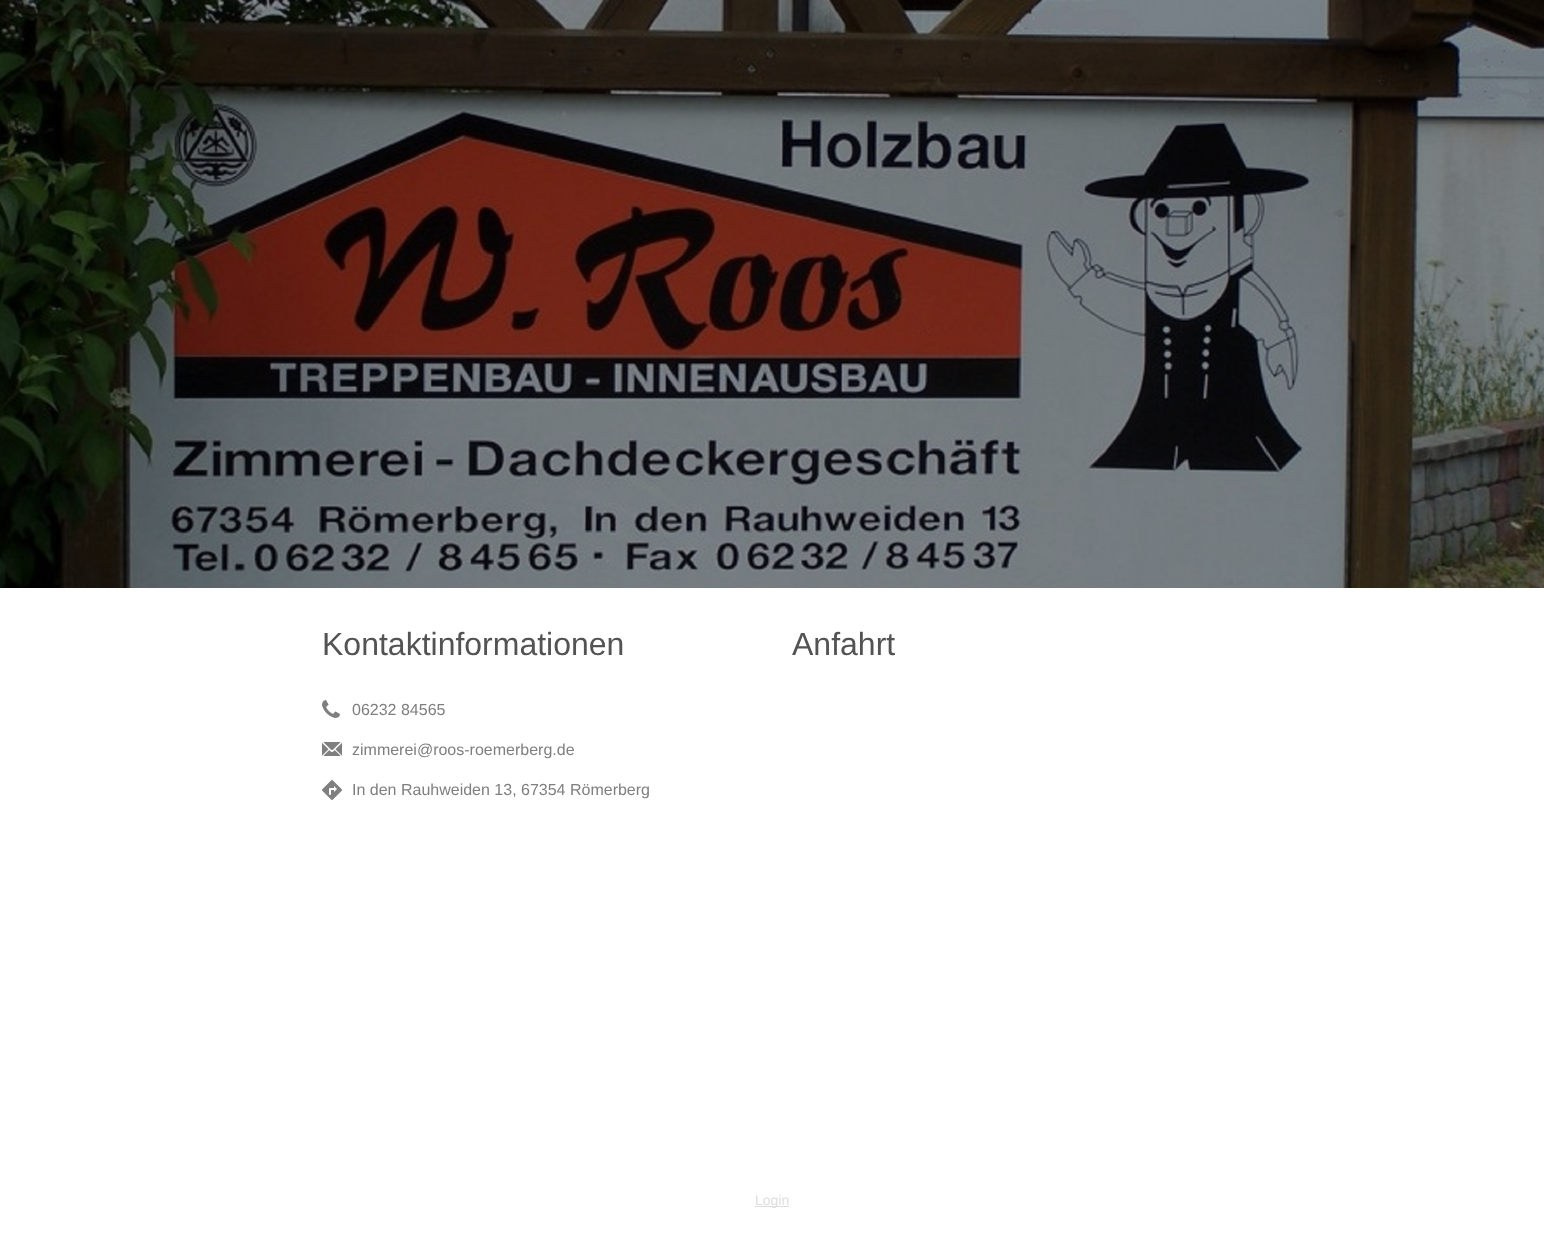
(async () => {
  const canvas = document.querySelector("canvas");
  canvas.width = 1544;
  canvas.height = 1252;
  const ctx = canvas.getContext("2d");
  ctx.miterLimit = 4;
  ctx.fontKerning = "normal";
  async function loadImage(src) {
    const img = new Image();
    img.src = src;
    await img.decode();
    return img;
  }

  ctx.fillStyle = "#ffffff";
  ctx.fillRect(0, 0, 1544, 1252);
  ctx.drawImage(await loadImage("img/1.png"), 0, 0, 1544, 588);
  ctx.drawImage(await loadImage("img/2.png"), 322, 700, 18, 18);
  ctx.drawImage(await loadImage("img/3.png"), 322, 742, 20, 14);
  ctx.drawImage(await loadImage("img/4.png"), 322, 780, 20, 20);
  ctx.fillStyle = "#dddddd";
  ctx.fillRect(755, 1206, 34, 1);
  ctx.font = "32px Liberation Sans";
  ctx.fillStyle = "#535353";
  ctx.fillText("Kontaktinformationen", 322, 655);
  ctx.font = "16px Liberation Sans";
  ctx.fillStyle = "#7f7f7f";
  for (const [text, x, y] of [
    ["06232 84565", 352, 715],
    ["zimmerei@roos-roemerberg.de", 352, 755],
    ["In den Rauhweiden 13, 67354 Römerberg", 352, 795],
  ]) {
    ctx.fillText(text, x, y);
  }
  ctx.font = "32px Liberation Sans";
  ctx.fillStyle = "#535353";
  ctx.fillText("Anfahrt", 792, 655);
  ctx.font = "14px Liberation Sans";
  ctx.fillStyle = "#dddddd";
  ctx.fillText("Login", 755, 1205);
})();
